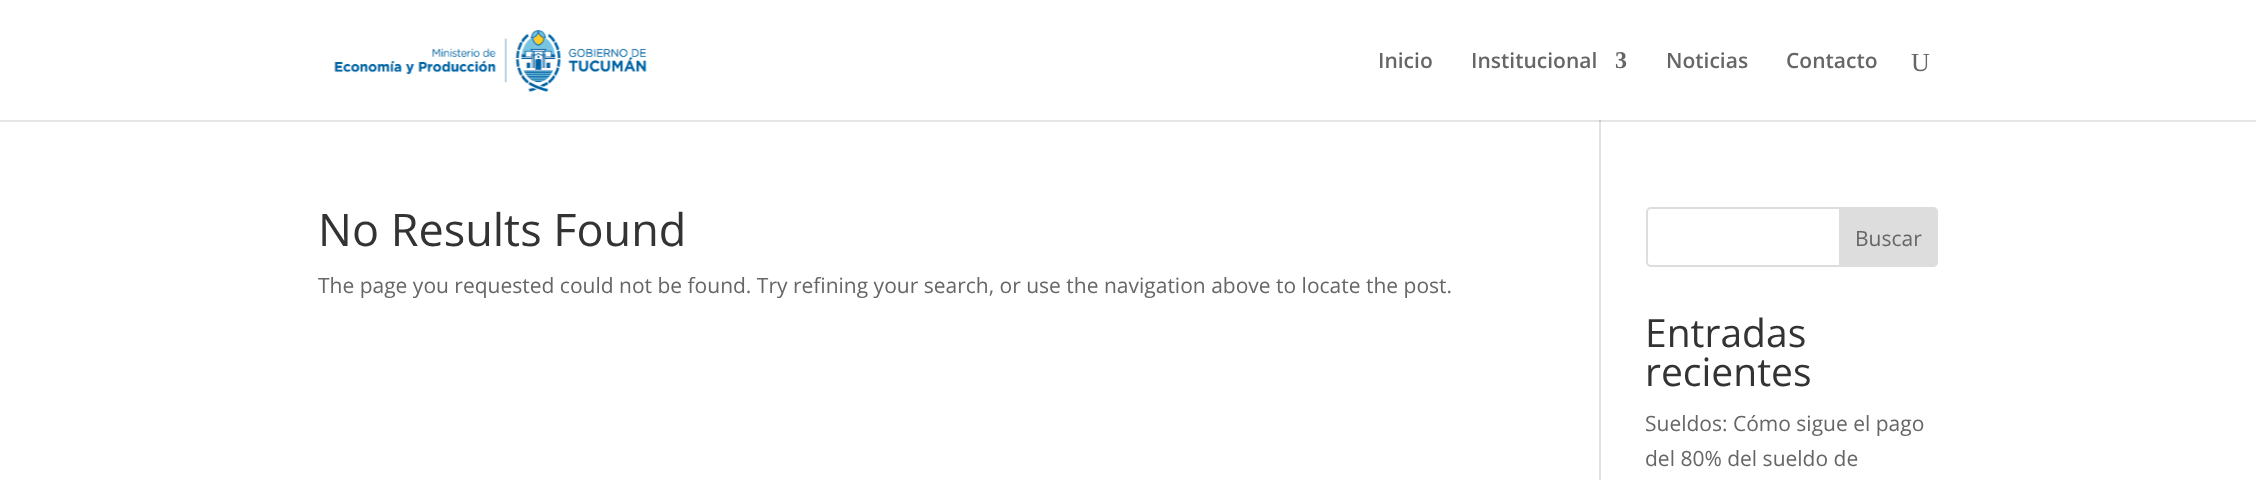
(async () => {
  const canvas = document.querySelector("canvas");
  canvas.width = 2256;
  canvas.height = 480;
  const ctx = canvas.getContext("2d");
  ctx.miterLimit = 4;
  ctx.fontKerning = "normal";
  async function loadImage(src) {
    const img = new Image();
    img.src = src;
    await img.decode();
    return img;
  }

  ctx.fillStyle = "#ffffff";
  ctx.fillRect(0, 0, 2256, 480);
  ctx.fillStyle = "#e6e6e6";
  ctx.fillRect(0, 120, 2256, 2);
  ctx.drawImage(await loadImage("img/1.png"), 334, 30, 313, 62);
  ctx.fillStyle = "#e2e2e2";
  ctx.fillRect(1599, 120, 2, 360);
  ctx.fillStyle = "#cbcbcb";
  ctx.fillRect(1599, 120, 2, 2);
  ctx.beginPath();
  ctx.roundRect(1647, 208, 290, 58, 4);
  ctx.strokeStyle = "#dddddd";
  ctx.lineWidth = 2;
  ctx.stroke();
  ctx.fillStyle = "#dddddd";
  ctx.beginPath();
  ctx.roundRect(1840, 208, 97, 58, [0, 4, 4, 0]);
  ctx.fill();
  ctx.stroke();
  ctx.font = "600 21px Open Sans";
  ctx.fillStyle = "#666666";
  ctx.fillText("Inicio", 1378, 68);
  ctx.fillText("Institucional", 1471, 68);
  ctx.font = "bold 24px Liberation Serif";
  ctx.fillText("3", 1615, 68);
  ctx.font = "600 21px Open Sans";
  ctx.fillText("Noticias", 1666, 68);
  ctx.fillText("Contacto", 1786, 68);
  ctx.font = "26px Liberation Serif";
  ctx.fillText("U", 1911, 71);
  ctx.font = "45px Open Sans";
  ctx.fillStyle = "#333333";
  ctx.fillText("No Results Found", 318, 246);
  ctx.font = "21px Open Sans";
  ctx.fillStyle = "#666666";
  ctx.fillText("The page you requested could not be found. Try refining your search, or use the navigation above to locate the post.", 318, 293);
  ctx.fillText("Buscar", 1855, 246);
  ctx.font = "39px Open Sans";
  ctx.fillStyle = "#333333";
  ctx.fillText("Entradas", 1645, 347);
  ctx.fillText("recientes", 1645, 386);
  ctx.font = "21px Open Sans";
  ctx.fillStyle = "#666666";
  ctx.fillText("Sueldos: Cómo sigue el pago", 1645, 431);
  ctx.fillText("del 80% del sueldo de", 1645, 466);
})();
